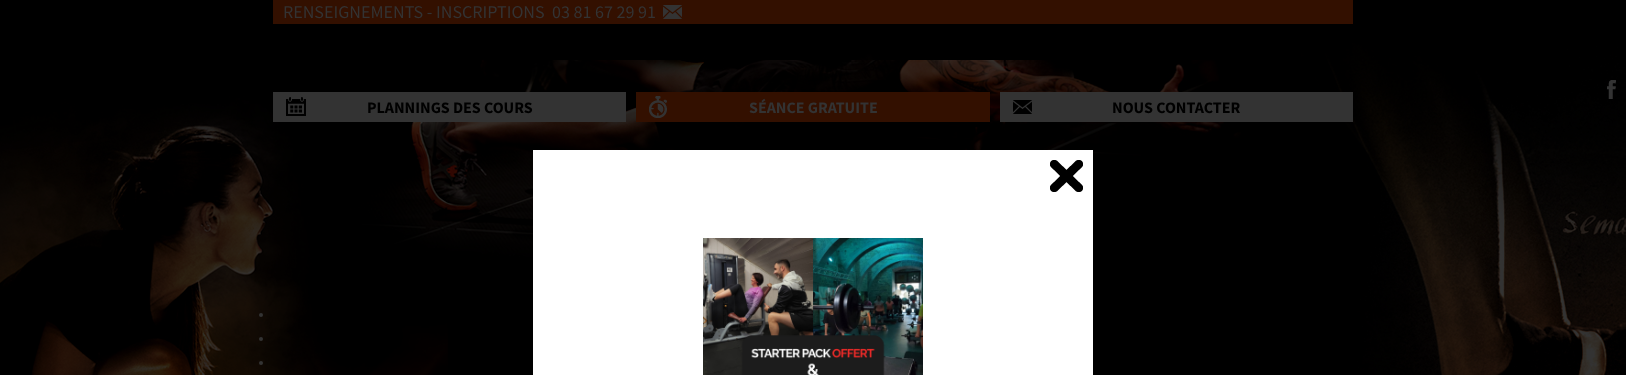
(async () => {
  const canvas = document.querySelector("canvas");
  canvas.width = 1626;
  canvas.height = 375;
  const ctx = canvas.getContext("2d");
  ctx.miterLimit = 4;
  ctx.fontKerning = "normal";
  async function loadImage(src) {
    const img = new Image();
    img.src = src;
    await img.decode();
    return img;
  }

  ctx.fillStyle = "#ffffff";
  ctx.fillRect(0, 0, 1626, 375);
  ctx.drawImage(await loadImage("img/1.png"), 0, 0, 1626, 375);
  ctx.fillStyle = "#331000";
  ctx.fillRect(273, 0, 1080, 24);
  ctx.drawImage(await loadImage("img/2.png"), 663, 5, 19, 14);
  ctx.fillStyle = "#333333";
  ctx.fillRect(273, 92, 353, 30);
  ctx.drawImage(await loadImage("img/3.png"), 286, 97, 20, 19);
  ctx.fillStyle = "#331000";
  ctx.fillRect(636, 92, 354, 30);
  ctx.drawImage(await loadImage("img/4.png"), 649, 96, 18, 22);
  ctx.fillStyle = "#333333";
  ctx.fillRect(1000, 92, 353, 30);
  ctx.drawImage(await loadImage("img/5.png"), 1013, 100, 19, 14);
  ctx.drawImage(await loadImage("img/6.png"), 1607, 80, 9, 19);
  ctx.beginPath();
  ctx.arc(261, 315, 2, 0, Math.PI * 2);
  ctx.fill();
  ctx.beginPath();
  ctx.arc(261, 339, 2, 0, Math.PI * 2);
  ctx.fill();
  ctx.beginPath();
  ctx.arc(261, 363, 2, 0, Math.PI * 2);
  ctx.fill();
  ctx.fillStyle = "#ffffff";
  ctx.fillRect(533, 150, 560, 225);
  ctx.drawImage(await loadImage("img/7.png"), 1050, 160, 33, 32);
  ctx.drawImage(await loadImage("img/8.png"), 703, 238, 220, 137);
  ctx.font = "18px Source Sans Pro";
  ctx.fillStyle = "#333333";
  ctx.fillText("RENSEIGNEMENTS - INSCRIPTIONS", 283, 18);
  ctx.fillText("03 81 67 29 91", 552, 18);
  ctx.font = "bold 16px Source Sans Pro";
  ctx.fillStyle = "#000000";
  ctx.fillText("PLANNINGS DES COURS", 367, 113);
  ctx.fillStyle = "#333333";
  ctx.fillText("SÉANCE GRATUITE", 749, 113);
  ctx.fillStyle = "#000000";
  ctx.fillText("NOUS CONTACTER", 1112, 113);
})();
